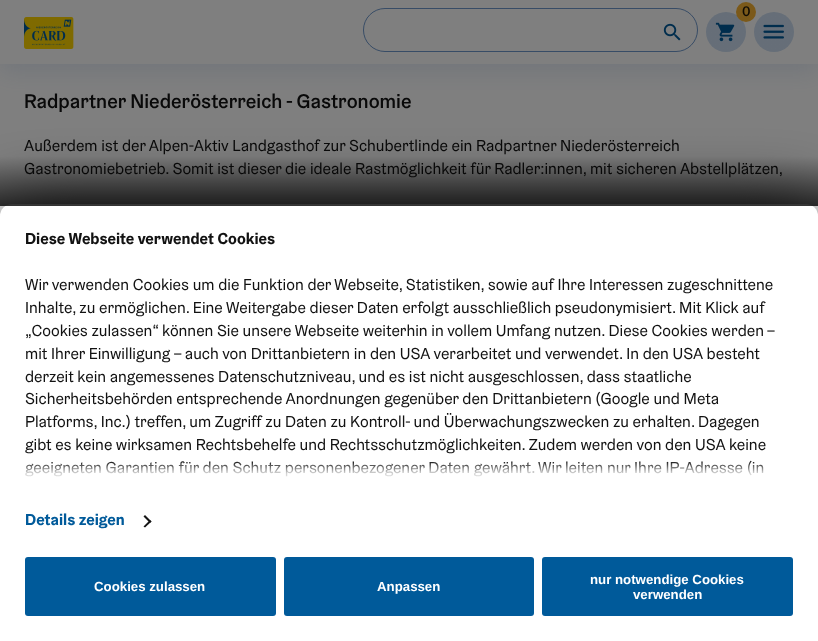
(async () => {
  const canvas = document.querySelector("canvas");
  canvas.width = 818;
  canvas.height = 641;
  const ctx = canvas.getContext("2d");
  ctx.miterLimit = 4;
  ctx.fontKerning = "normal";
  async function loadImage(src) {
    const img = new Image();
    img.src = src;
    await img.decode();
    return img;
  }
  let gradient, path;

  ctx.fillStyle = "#ffffff";
  ctx.fillRect(0, 0, 818, 641);
  ctx.fillStyle = "rgba(74, 123, 185, 0.15)";
  ctx.filter = "blur(12px)";
  ctx.beginPath();
  ctx.rect(0, 8, 818, 64);
  ctx.fill();
  ctx.filter = "none";
  ctx.fillStyle = "#ffffff";
  ctx.fillRect(0, 0, 818, 64);
  ctx.drawImage(await loadImage("img/1.png"), 24, 17, 50, 32);
  ctx.drawImage(await loadImage("img/2.png"), 663, 23, 18, 18);
  ctx.beginPath();
  ctx.roundRect(363.5, 8.5, 334, 43, 21.5);
  ctx.strokeStyle = "#6f98cc";
  ctx.stroke();
  ctx.fillStyle = "#cdddf1";
  ctx.beginPath();
  ctx.arc(726, 32, 20, 0, Math.PI * 2);
  ctx.fill();
  ctx.beginPath();
  ctx.arc(774, 32, 20, 0, Math.PI * 2);
  ctx.fill();
  ctx.fillStyle = "#f7b334";
  ctx.beginPath();
  ctx.arc(746, 12, 10, 0, Math.PI * 2);
  ctx.fill();
  ctx.drawImage(await loadImage("img/3.png"), 715, 22, 20, 20);
  ctx.drawImage(await loadImage("img/4.png"), 763, 24, 21, 15);
  ctx.fillStyle = "rgba(0, 0, 0, 0.8)";
  ctx.filter = "blur(35px)";
  ctx.beginPath();
  ctx.roundRect(0, 204, 818, 437, 12);
  ctx.fill();
  ctx.filter = "none";
  ctx.fillStyle = "#ffffff";
  ctx.beginPath();
  ctx.roundRect(0, 204, 818, 437, [12, 12, 0, 0]);
  ctx.fill();
  ctx.fillStyle = "#141414";
  path = new Path2D("M145 515L151.5 521.5L150 523L143.5 516.5Z");
  ctx.fill(path);
  path = new Path2D("M150 520L151.5 521.5L145 527.5L143.5 526.5Z");
  ctx.fill(path);
  ctx.fillStyle = "#005a9a";
  ctx.beginPath();
  ctx.roundRect(25, 557, 251, 59, 3);
  ctx.fill();
  ctx.beginPath();
  ctx.roundRect(284, 557, 250, 59, 3);
  ctx.fill();
  ctx.beginPath();
  ctx.roundRect(542, 557, 251, 59, 3);
  ctx.fill();
  ctx.font = "500 14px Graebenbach";
  ctx.fillStyle = "#201707";
  ctx.fillText("0", 742, 16);
  ctx.font = "500 20px Graebenbach";
  ctx.fillStyle = "#121212";
  ctx.fillText("Radpartner Niederösterreich - Gastronomie", 24, 108);
  ctx.font = "16px Graebenbach";
  ctx.fillText("Außerdem ist der Alpen-Aktiv Landgasthof zur Schubertlinde ein Radpartner Niederösterreich", 24, 151);
  ctx.fillText("Gastronomiebetrieb. Somit ist dieser die ideale Rastmöglichkeit für Radler:innen, mit sicheren Abstellplätzen,", 24, 174);
  gradient = ctx.createLinearGradient(409, 206, 409, -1.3);
  gradient.addColorStop(0, "rgba(0, 0, 0, 0.8)");
  gradient.addColorStop(0.24, "rgba(0, 0, 0, 0.5)");
  gradient.addColorStop(0.8, "rgba(0, 0, 0, 0.5)");
  ctx.fillStyle = gradient;
  ctx.fillRect(0, 0, 818, 206);
  ctx.font = "bold 16px Graebenbach";
  ctx.fillStyle = "#121212";
  ctx.fillText("Diese Webseite verwendet Cookies", 25, 244);
  ctx.font = "16px Graebenbach";
  for (const [text, x, y] of [
    ["Wir verwenden Cookies um die Funktion der Webseite, Statistiken, sowie auf Ihre Interessen zugeschnittene", 25, 290],
    ["Inhalte, zu ermöglichen. Eine Weitergabe dieser Daten erfolgt ausschließlich pseudonymisiert. Mit Klick auf", 25, 313],
    ["„Cookies zulassen“ können Sie unsere Webseite weiterhin in vollem Umfang nutzen. Diese Cookies werden –", 25, 336],
    ["mit Ihrer Einwilligung – auch von Drittanbietern in den USA verarbeitet und verwendet. In den USA besteht", 25, 359],
    ["derzeit kein angemessenes Datenschutzniveau, und es ist nicht ausgeschlossen, dass staatliche", 25, 382],
    ["Sicherheitsbehörden entsprechende Anordnungen gegenüber den Drittanbietern (Google und Meta", 25, 404],
    ["Platforms, Inc.) treffen, um Zugriff zu Daten zu Kontroll- und Überwachungszwecken zu erhalten. Dagegen", 25, 427],
    ["gibt es keine wirksamen Rechtsbehelfe und Rechtsschutzmöglichkeiten. Zudem werden von den USA keine", 25, 450],
    ["geeigneten Garantien für den Schutz personenbezogener Daten gewährt. Wir leiten nur Ihre IP-Adresse (in", 25, 473],
  ]) {
    ctx.fillText(text, x, y);
  }
  gradient = ctx.createLinearGradient(397, 485, 397, 461);
  gradient.addColorStop(0, "#ffffff");
  gradient.addColorStop(0.5, "rgba(255, 255, 255, 0.8)");
  gradient.addColorStop(1, "rgba(255, 255, 255, 0)");
  ctx.fillStyle = gradient;
  ctx.fillRect(25, 461, 739, 16);
  ctx.font = "bold 16px Graebenbach";
  ctx.fillStyle = "#005a9a";
  ctx.fillText("Details zeigen", 25, 525);
  ctx.font = "bold 13.25px Liberation Sans";
  ctx.fillStyle = "#ffffff";
  for (const [text, x, y] of [
    ["Cookies zulassen", 94, 591],
    ["Anpassen", 377, 591],
    ["nur notwendige Cookies", 590, 584],
    ["verwenden", 633, 599],
  ]) {
    ctx.fillText(text, x, y);
  }
})();
